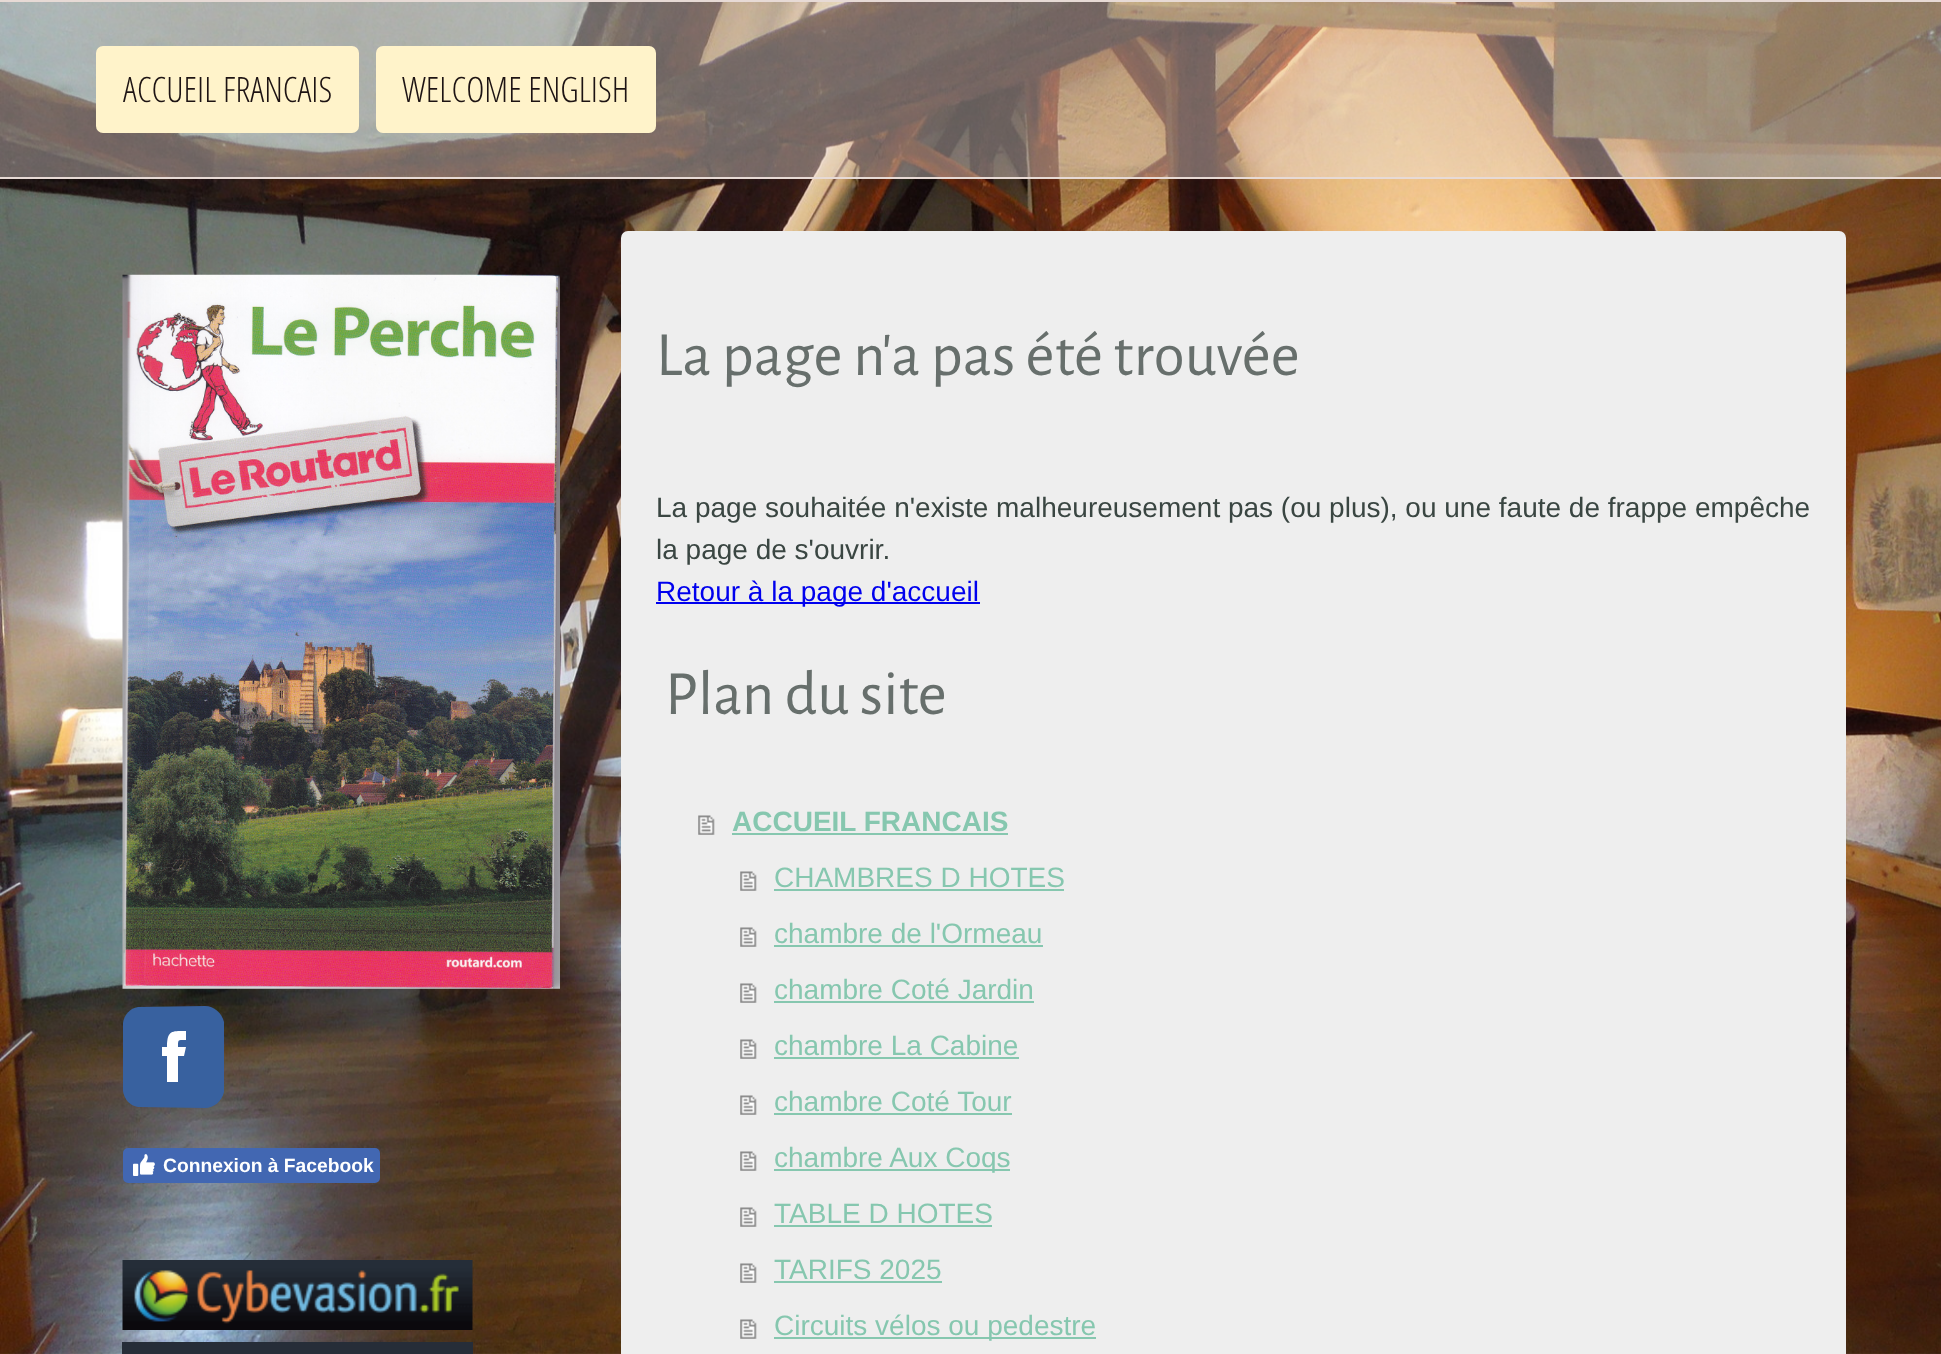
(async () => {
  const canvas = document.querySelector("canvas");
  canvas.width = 1941;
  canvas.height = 1354;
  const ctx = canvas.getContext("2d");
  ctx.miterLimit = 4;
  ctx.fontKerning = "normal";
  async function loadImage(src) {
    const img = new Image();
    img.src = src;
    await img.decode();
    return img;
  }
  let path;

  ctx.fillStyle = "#ffffff";
  ctx.fillRect(0, 0, 1941, 1354);
  ctx.drawImage(await loadImage("img/1.png"), 0, 2, 1941, 1352);
  for (const [x, y, w, h, color] of [
    [0, 2, 1941, 175, "rgba(237, 227, 223, 0.4)"],
    [0, 0, 1941, 2, "#e7dad5"],
    [0, 177, 1941, 2, "#e7dad5"],
  ]) {
    ctx.fillStyle = color;
    ctx.fillRect(x, y, w, h);
  }
  ctx.fillStyle = "#fff3ca";
  ctx.beginPath();
  ctx.roundRect(96, 46, 263, 87, 7);
  ctx.fill();
  ctx.beginPath();
  ctx.roundRect(376, 46, 280, 87, 7);
  ctx.fill();
  ctx.drawImage(await loadImage("img/2.png"), 122, 274, 438, 715);
  ctx.fillStyle = "#38619f";
  path = new Path2D("M205 1108L138 1107C130 1106 124 1099 123 1091V1023C124 1015 130 1008 138 1007L205 1006C214 1006 222 1013 224 1022V1036V1092C222 1101 214 1108 205 1108Z");
  ctx.fill(path);
  ctx.fillStyle = "#ffffff";
  path = new Path2D("M186 1031C172 1031 167 1030 167 1047H162V1056H167V1082H178V1056H184L186 1047H178C178 1039 178 1040 186 1040Z");
  ctx.fill(path);
  ctx.fillStyle = "#4267b2";
  ctx.beginPath();
  ctx.roundRect(124, 1149, 255, 33, 4);
  ctx.fill();
  ctx.strokeStyle = "#4267b2";
  ctx.lineWidth = 2;
  ctx.stroke();
  ctx.drawImage(await loadImage("img/3.png"), 133, 1154, 22, 22);
  ctx.drawImage(await loadImage("img/4.png"), 122, 1260, 351, 70);
  ctx.fillStyle = "#262d38";
  ctx.fillRect(122, 1342, 351, 12);
  ctx.fillStyle = "#eeeeee";
  ctx.beginPath();
  ctx.roundRect(621, 231, 1225, 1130, 7);
  ctx.fill();
  ctx.fillStyle = "#0000ee";
  ctx.fillRect(656, 602, 324, 2);
  ctx.drawImage(await loadImage("img/5.png"), 698, 815, 17, 20);
  ctx.fillStyle = "#86c7af";
  ctx.fillRect(732, 833, 276, 2);
  ctx.drawImage(await loadImage("img/6.png"), 740, 871, 17, 20);
  ctx.fillRect(774, 889, 290, 2);
  ctx.drawImage(await loadImage("img/6.png"), 740, 927, 17, 20);
  ctx.fillRect(774, 945, 269, 2);
  ctx.drawImage(await loadImage("img/6.png"), 740, 983, 17, 20);
  ctx.fillRect(774, 1001, 260, 2);
  ctx.drawImage(await loadImage("img/6.png"), 740, 1039, 17, 20);
  ctx.fillRect(774, 1057, 245, 2);
  ctx.drawImage(await loadImage("img/6.png"), 740, 1095, 17, 20);
  ctx.fillRect(774, 1113, 238, 2);
  ctx.drawImage(await loadImage("img/6.png"), 740, 1151, 17, 20);
  ctx.fillRect(774, 1169, 236, 2);
  ctx.drawImage(await loadImage("img/6.png"), 740, 1207, 17, 20);
  ctx.fillRect(774, 1225, 218, 2);
  ctx.drawImage(await loadImage("img/6.png"), 740, 1263, 17, 20);
  ctx.fillRect(774, 1281, 168, 2);
  ctx.drawImage(await loadImage("img/6.png"), 740, 1319, 17, 20);
  ctx.fillRect(774, 1337, 322, 2);
  ctx.font = "300 35px Open Sans Condensed";
  ctx.fillStyle = "#1d1313";
  ctx.fillText("ACCUEIL FRANCAIS", 123, 102);
  ctx.fillText("WELCOME ENGLISH", 402, 102);
  ctx.font = "bold 19.25px Liberation Sans";
  ctx.fillStyle = "#ffffff";
  ctx.fillText("Connexion à Facebook", 163, 1172);
  ctx.font = "63px Alegreya Sans";
  ctx.fillStyle = "#676f6c";
  ctx.fillText("La page n'a pas été trouvée", 656, 375);
  ctx.font = "28px Arimo";
  ctx.fillStyle = "#3a4642";
  ctx.fillText("La page souhaitée n'existe malheureusement pas (ou plus), ou une faute de frappe empêche", 656, 517);
  ctx.fillText("la page de s'ouvrir.", 656, 559);
  ctx.fillStyle = "#0000ee";
  ctx.fillText("Retour à la page d'accueil", 656, 601);
  ctx.font = "63px Alegreya Sans";
  ctx.fillStyle = "#676f6c";
  ctx.fillText("Plan du site", 665, 714);
  ctx.font = "bold 28px Arimo";
  ctx.fillStyle = "#86c7af";
  ctx.fillText("ACCUEIL FRANCAIS", 732, 831);
  ctx.font = "28px Arimo";
  for (const [text, x, y] of [
    ["CHAMBRES D HOTES", 774, 887],
    ["chambre de l'Ormeau", 774, 943],
    ["chambre Coté Jardin", 774, 999],
    ["chambre La Cabine", 774, 1055],
    ["chambre Coté Tour", 774, 1111],
    ["chambre Aux Coqs", 774, 1167],
    ["TABLE D HOTES", 774, 1223],
    ["TARIFS 2025", 774, 1279],
    ["Circuits vélos ou pedestre", 774, 1335],
  ]) {
    ctx.fillText(text, x, y);
  }
})();
